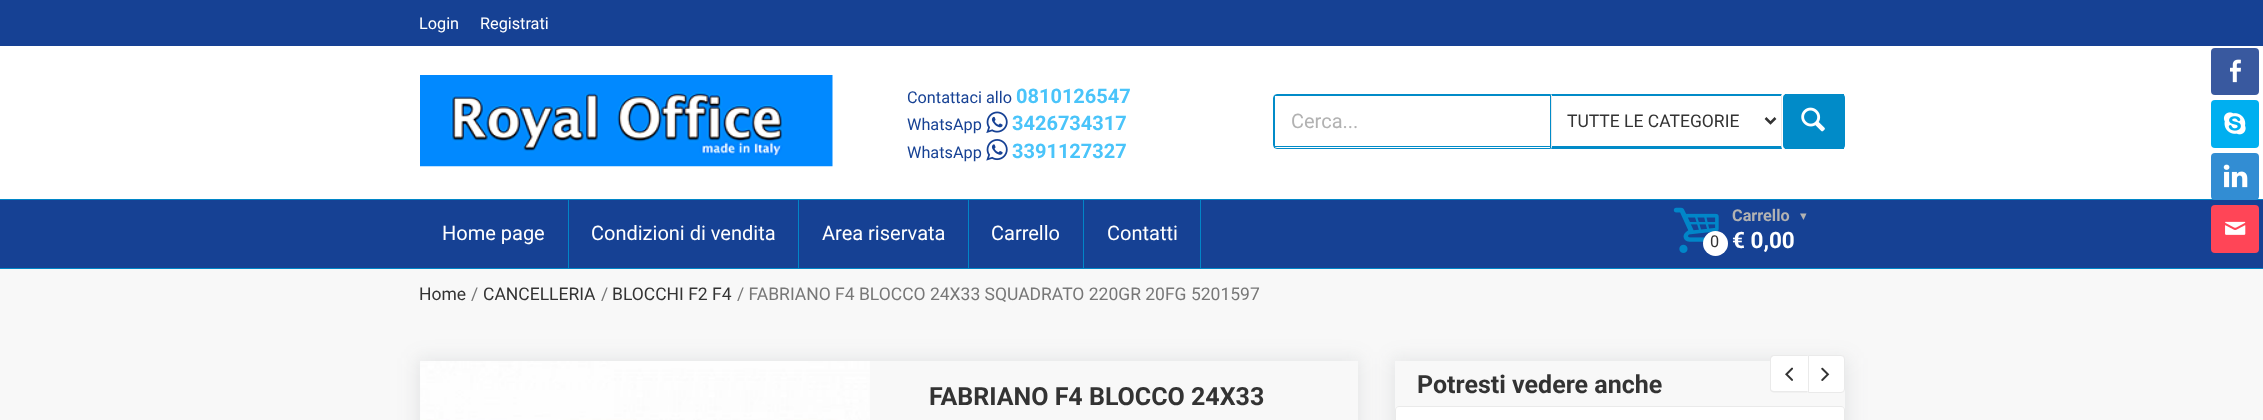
(async () => {
  const canvas = document.querySelector("canvas");
  canvas.width = 2263;
  canvas.height = 420;
  const ctx = canvas.getContext("2d");
  ctx.miterLimit = 4;
  ctx.fontKerning = "normal";
  async function loadImage(src) {
    const img = new Image();
    img.src = src;
    await img.decode();
    return img;
  }
  let path;

  ctx.fillStyle = "#ffffff";
  ctx.fillRect(0, 0, 2263, 420);
  ctx.fillStyle = "#164194";
  ctx.fillRect(0, 0, 2263, 46);
  ctx.drawImage(await loadImage("img/1.png"), 420, 75, 413, 92);
  ctx.drawImage(await loadImage("img/2.png"), 986, 111, 22, 22);
  ctx.drawImage(await loadImage("img/3.png"), 986, 139, 22, 22);
  ctx.beginPath();
  ctx.roundRect(1273.5, 94.5, 277, 54, [3.5, 0, 0, 3.5]);
  ctx.strokeStyle = "#018bc8";
  ctx.stroke();
  for (const [x, y, w, h, color] of [
    [1275, 95, 276, 1, "#018bc8"],
    [1275, 146, 276, 1, "#018bc8"],
    [1274, 96, 1, 52, "#018bc8"],
  ]) {
    ctx.fillStyle = color;
    ctx.fillRect(x, y, w, h);
  }
  path = new Path2D("M1551 94H1782L1781 96H1552Z");
  ctx.fill(path);
  ctx.fillStyle = "#eaeaea";
  path = new Path2D("M1782 94V149L1781 146V96Z");
  ctx.fill(path);
  ctx.fillStyle = "#018bc8";
  path = new Path2D("M1782 149H1551L1552 146H1781Z");
  ctx.fill(path);
  ctx.fillStyle = "#eaeaea";
  path = new Path2D("M1551 149V94L1552 96V146Z");
  ctx.fill(path);
  path = new Path2D("M1765.5 118L1770.5 123L1775.5 118");
  ctx.strokeStyle = "#333333";
  ctx.lineWidth = 2.5;
  ctx.stroke(path);
  ctx.fillStyle = "#018bc8";
  ctx.beginPath();
  ctx.roundRect(1783, 94, 62, 55, 4);
  ctx.fill();
  ctx.fillRect(1785, 94, 59, 2);
  ctx.fillRect(1785, 147, 59, 2);
  ctx.drawImage(await loadImage("img/4.png"), 1801, 107, 24, 25);
  for (const [x, y, w, h, color] of [
    [0, 200, 2263, 68, "#164194"],
    [0, 199, 2263, 1, "#0186c8"],
    [0, 268, 2263, 1, "#0186c8"],
    [568, 199, 1, 70, "#0186c8"],
    [798, 199, 1, 70, "#0186c8"],
    [968, 199, 1, 70, "#0186c8"],
    [1083, 199, 1, 70, "#0186c8"],
    [1200, 199, 1, 70, "#0186c8"],
  ]) {
    ctx.fillStyle = color;
    ctx.fillRect(x, y, w, h);
  }
  ctx.drawImage(await loadImage("img/5.png"), 1673, 207, 46, 46);
  ctx.fillStyle = "#b2b2b2";
  path = new Path2D("M1803.5 220L1800 213.5H1806.5Z");
  ctx.fill(path);
  ctx.fillStyle = "#ffffff";
  ctx.beginPath();
  ctx.arc(1715.5, 243.5, 12.5, 0, Math.PI * 2);
  ctx.fill();
  ctx.fillStyle = "#f8f8f8";
  ctx.fillRect(0, 269, 2263, 151);
  ctx.save();
  path = new Path2D("M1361 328H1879V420H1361ZM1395 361H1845V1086H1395Z");
  ctx.clip(path, "evenodd");
  ctx.fillStyle = "rgba(69, 79, 91, 0.1)";
  ctx.filter = "blur(9.5px)";
  ctx.beginPath();
  ctx.rect(1391, 358, 458, 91);
  ctx.fill();
  ctx.filter = "none";
  ctx.restore();
  ctx.fillStyle = "#ffffff";
  ctx.beginPath();
  ctx.roundRect(1771, 356, 37, 35, [2.5, 0, 0, 2.5]);
  ctx.fill();
  ctx.fillStyle = "#eaeaea";
  path = new Path2D("M1774 355H1807.5V392.5H1774C1771.5 392.5 1770 391 1770 389V359C1770 356.5 1771.5 355 1774 355ZM1774 356H1807.5V391H1774C1772.5 391 1771 390 1771 389V359C1771 357.5 1772.5 356 1774 356Z");
  ctx.fill(path, "evenodd");
  ctx.drawImage(await loadImage("img/6.png"), 1785, 367, 8, 14);
  ctx.fillStyle = "#ffffff";
  ctx.beginPath();
  ctx.roundRect(1808.5, 355.5, 36, 37, [0, 3.5, 3.5, 0]);
  ctx.fill();
  ctx.strokeStyle = "#eaeaea";
  ctx.lineWidth = 1;
  ctx.stroke();
  ctx.drawImage(await loadImage("img/7.png"), 1821, 367, 9, 14);
  path = new Path2D("M1399 406.5H1841C1843 406.5 1844.5 408 1844.5 410V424.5H1395.5V410C1395.5 408 1397 406.5 1399 406.5Z");
  ctx.fill(path);
  ctx.stroke(path);
  ctx.save();
  path = new Path2D("M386 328H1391V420H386ZM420 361H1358V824H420Z");
  ctx.clip(path, "evenodd");
  ctx.fillStyle = "rgba(69, 79, 91, 0.1)";
  ctx.filter = "blur(9.5px)";
  ctx.beginPath();
  ctx.rect(416, 358, 945, 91);
  ctx.fill();
  ctx.filter = "none";
  ctx.restore();
  ctx.drawImage(await loadImage("img/8.png"), 420, 361, 450, 59);
  ctx.fillStyle = "#39599f";
  ctx.beginPath();
  ctx.roundRect(2211, 48, 48, 47, 4);
  ctx.fill();
  ctx.drawImage(await loadImage("img/9.png"), 2230, 59, 11, 24);
  ctx.fillStyle = "#00aff0";
  ctx.beginPath();
  ctx.roundRect(2211, 100, 48, 48, 4);
  ctx.fill();
  ctx.drawImage(await loadImage("img/10.png"), 2223, 112, 23, 23);
  ctx.fillStyle = "#328dd3";
  ctx.beginPath();
  ctx.roundRect(2211, 153, 48, 47, 4);
  ctx.fill();
  ctx.drawImage(await loadImage("img/11.png"), 2223, 164, 25, 24);
  ctx.fillStyle = "#ff4557";
  ctx.beginPath();
  ctx.roundRect(2211, 205, 48, 48, 4);
  ctx.fill();
  ctx.drawImage(await loadImage("img/12.png"), 2225, 221, 21, 14);
  ctx.font = "16.25px Roboto";
  ctx.fillStyle = "#ffffff";
  ctx.fillText("Login", 419, 29);
  ctx.fillText("Registrati", 480, 29);
  ctx.fillStyle = "#164194";
  ctx.fillText("Contattaci allo", 907, 103);
  ctx.font = "bold 20px Roboto";
  ctx.fillStyle = "#4ac4fa";
  ctx.fillText("0810126547", 1016, 103);
  ctx.font = "16.25px Roboto";
  ctx.fillStyle = "#164194";
  ctx.fillText("WhatsApp", 907, 130);
  ctx.font = "bold 20px Roboto";
  ctx.fillStyle = "#4ac4fa";
  ctx.fillText("3426734317", 1012, 130);
  ctx.font = "16.25px Roboto";
  ctx.fillStyle = "#164194";
  ctx.fillText("WhatsApp", 907, 158);
  ctx.font = "bold 20px Roboto";
  ctx.fillStyle = "#4ac4fa";
  ctx.fillText("3391127327", 1012, 158);
  ctx.font = "20px Roboto";
  ctx.fillStyle = "#b2b2b2";
  ctx.fillText("Cerca...", 1291, 128);
  ctx.font = "17.5px Roboto";
  ctx.fillStyle = "#333333";
  ctx.fillText("TUTTE LE CATEGORIE", 1567, 127);
  ctx.font = "20px Roboto";
  ctx.fillStyle = "#ffffff";
  for (const [text, x, y] of [
    ["Home page", 442, 240],
    ["Condizioni di vendita", 591, 240],
    ["Area riservata", 822, 240],
    ["Carrello", 991, 240],
    ["Contatti", 1107, 240],
  ]) {
    ctx.fillText(text, x, y);
  }
  ctx.font = "bold 16.25px Roboto";
  ctx.fillStyle = "#b2b2b2";
  ctx.fillText("Carrello", 1732, 221);
  ctx.font = "16.25px Roboto";
  ctx.fillStyle = "#333333";
  ctx.fillText("0", 1710, 247);
  ctx.font = "bold 22.5px Roboto";
  ctx.fillStyle = "#ffffff";
  ctx.fillText("€ 0,00", 1732, 248);
  ctx.font = "17.5px Roboto";
  ctx.fillStyle = "#333333";
  ctx.fillText("Home", 419, 300);
  ctx.fillStyle = "#777777";
  ctx.fillText("/", 471, 300);
  ctx.fillStyle = "#333333";
  ctx.fillText("CANCELLERIA", 483, 300);
  ctx.fillStyle = "#777777";
  ctx.fillText("/", 601, 300);
  ctx.fillStyle = "#333333";
  ctx.fillText("BLOCCHI F2 F4", 612, 300);
  ctx.fillStyle = "#777777";
  ctx.fillText("/ FABRIANO F4 BLOCCO 24X33 SQUADRATO 220GR 20FG 5201597", 737, 300);
  ctx.font = "bold 25px Roboto";
  ctx.fillStyle = "#333333";
  ctx.fillText("Potresti vedere anche", 1417, 393);
  ctx.fillText("FABRIANO F4 BLOCCO 24X33", 929, 405);
})();
